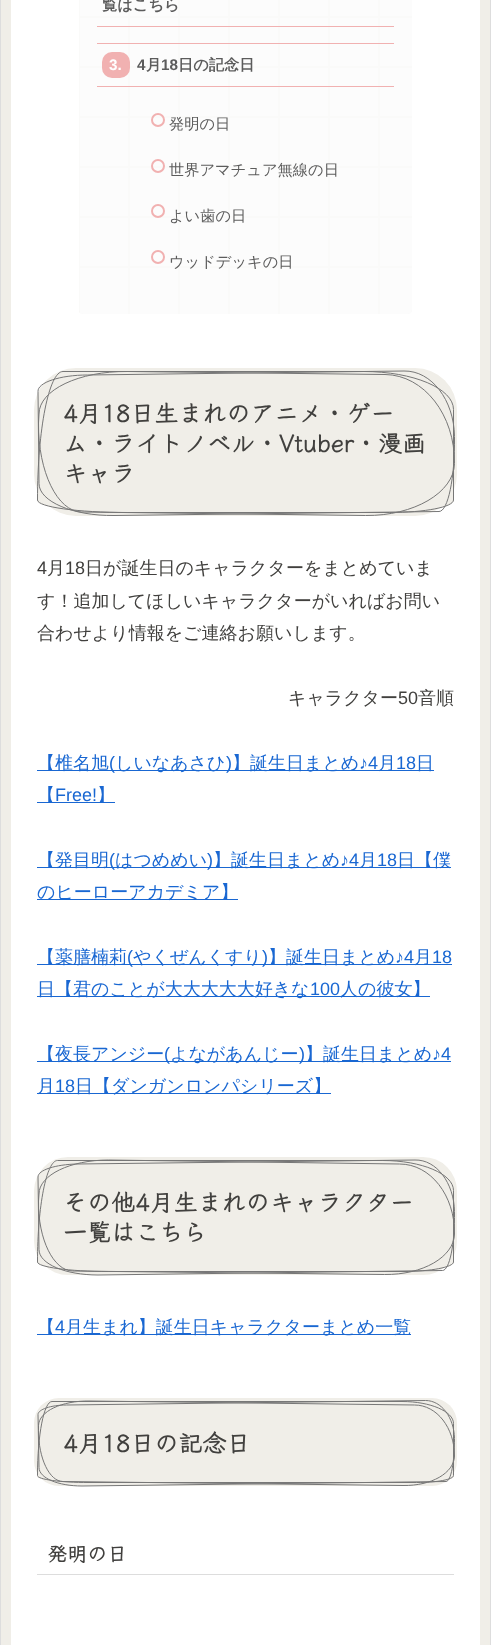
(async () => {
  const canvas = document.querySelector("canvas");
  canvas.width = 491;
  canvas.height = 1645;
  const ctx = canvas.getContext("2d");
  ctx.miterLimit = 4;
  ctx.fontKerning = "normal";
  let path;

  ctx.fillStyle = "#ffffff";
  ctx.fillRect(0, 0, 491, 1645);
  path = new Path2D("M6-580H485V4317H6Z");
  ctx.strokeStyle = "#f0eee8";
  ctx.lineWidth = 10;
  ctx.stroke(path);
  ctx.strokeStyle = "#dddddd";
  ctx.lineWidth = 1;
  ctx.strokeRect(0.5, -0.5, 490, 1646);
  ctx.save();
  ctx.beginPath();
  ctx.roundRect(79, -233, 333, 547, 4);
  ctx.clip();
  ctx.fillStyle = "#f3f1ed";
  ctx.fillRect(79, 0, 1, 314);
  ctx.fillStyle = "#fbfbfb";
  ctx.fillRect(80, 0, 48, 314);
  ctx.restore();
  for (const [x, y, w, h, color] of [
    [128, 0, 2, 314, "#f3f1ed"],
    [130, 0, 48, 314, "#fbfbfb"],
    [178, 0, 2, 314, "#f3f1ed"],
    [180, 0, 48, 314, "#fbfbfb"],
    [228, 0, 2, 314, "#f3f1ed"],
    [230, 0, 48, 314, "#fbfbfb"],
    [278, 0, 2, 314, "#f3f1ed"],
    [280, 0, 48, 314, "#fbfbfb"],
    [328, 0, 2, 314, "#f3f1ed"],
    [330, 0, 48, 314, "#fbfbfb"],
    [378, 0, 2, 314, "#f3f1ed"],
  ]) {
    ctx.fillStyle = color;
    ctx.fillRect(x, y, w, h);
  }
  ctx.fillStyle = "#fbfbfb";
  path = new Path2D("M380-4H408C410-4 412-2 412 0V310C412 312 410 314 408 314H380Z");
  ctx.fill(path);
  for (const [x, y, w, h, color] of [
    [79, 16, 333, 2, "#f3f1ed"],
    [79, 66, 333, 2, "#f3f1ed"],
    [79, 116, 333, 2, "#f3f1ed"],
    [79, 166, 333, 2, "#f3f1ed"],
    [79, 216, 333, 2, "#f3f1ed"],
    [79, 266, 333, 2, "#f3f1ed"],
  ]) {
    ctx.fillStyle = color;
    ctx.fillRect(x, y, w, h);
  }
  ctx.fillStyle = "rgba(251, 251, 251, 0.84)";
  ctx.beginPath();
  ctx.roundRect(79, -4, 333, 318, 4);
  ctx.fill();
  for (const [x, y, w, h, color] of [
    [97, 26, 297, 1, "#f1b1b1"],
    [97, 43, 297, 1, "#f1b1b1"],
    [97, 86, 297, 1, "#f1b1b1"],
  ]) {
    ctx.fillStyle = color;
    ctx.fillRect(x, y, w, h);
  }
  ctx.beginPath();
  ctx.roundRect(102, 52, 28, 26, 10);
  ctx.fill();
  ctx.beginPath();
  ctx.arc(158, 120, 6, 0, Math.PI * 2);
  ctx.strokeStyle = "#f1b1b1";
  ctx.lineWidth = 2;
  ctx.stroke();
  ctx.beginPath();
  ctx.arc(158, 166, 6, 0, Math.PI * 2);
  ctx.stroke();
  ctx.beginPath();
  ctx.arc(158, 211, 6, 0, Math.PI * 2);
  ctx.stroke();
  ctx.beginPath();
  ctx.arc(158, 257, 6, 0, Math.PI * 2);
  ctx.stroke();
  ctx.fillStyle = "#f0eee8";
  ctx.filter = "blur(0.5px)";
  ctx.beginPath();
  ctx.roundRect(34, 368, 423, 148, 42);
  ctx.fill();
  ctx.filter = "none";
  path = new Path2D("M63 371H364C414 371 454 388 454 410V500C454 507 425 513 389 513H127C77 513 37 507 37 500C37 429 49 371 63 371Z");
  ctx.fill(path);
  path = new Path2D("M63 371.5H363.5C413.5 371.5 453.5 388.5 453.5 409.5V500C453.5 507 425 512.5 389.5 512.5H127.5C77.5 512.5 37.5 507 37.5 500C37.5 429 49 371.5 63 371.5Z");
  ctx.strokeStyle = "#777777";
  ctx.lineWidth = 1;
  ctx.stroke(path);
  for (const [x, y, w, h, color] of [
    [37, 770, 397, 1, "#1967d2"],
    [37, 802, 78, 1, "#1967d2"],
    [37, 867, 414, 1, "#1967d2"],
    [37, 899, 201, 1, "#1967d2"],
    [37, 964, 415, 1, "#1967d2"],
    [37, 996, 393, 1, "#1967d2"],
    [37, 1061, 414, 1, "#1967d2"],
    [37, 1093, 294, 1, "#1967d2"],
  ]) {
    ctx.fillStyle = color;
    ctx.fillRect(x, y, w, h);
  }
  ctx.fillStyle = "#f0eee8";
  ctx.filter = "blur(0.5px)";
  ctx.beginPath();
  ctx.roundRect(34, 1157, 423, 118, 34);
  ctx.fill();
  ctx.filter = "none";
  path = new Path2D("M57 1160H383C422 1160 454 1174 454 1191V1262C454 1267 431 1272 403 1272H108C69 1272 37 1267 37 1262C37 1206 46 1160 57 1160Z");
  ctx.fill(path);
  path = new Path2D("M57.5 1160.5H382.5C422 1160.5 453.5 1174 453.5 1190.5V1262C453.5 1267 431 1271.5 403 1271.5H108.5C69 1271.5 37.5 1267 37.5 1262C37.5 1206 46.5 1160.5 57.5 1160.5Z");
  ctx.stroke(path);
  ctx.fillStyle = "#1967d2";
  ctx.fillRect(37, 1334, 374, 1);
  ctx.fillStyle = "#f0eee8";
  ctx.filter = "blur(0.5px)";
  ctx.beginPath();
  ctx.roundRect(34, 1398, 423, 88, 25);
  ctx.fill();
  ctx.filter = "none";
  path = new Path2D("M52 1401H402C431 1401 454 1411 454 1423V1476C454 1480 437 1483 417 1483H89C60 1483 37 1480 37 1476C37 1434 44 1401 52 1401Z");
  ctx.fill(path);
  path = new Path2D("M52 1401.5H402C430.5 1401.5 453.5 1411.5 453.5 1423.5V1475.5C453.5 1479.5 437 1482.5 416.5 1482.5H89C60.5 1482.5 37.5 1479.5 37.5 1475.5C37.5 1434.5 44 1401.5 52 1401.5Z");
  ctx.stroke(path);
  ctx.fillStyle = "#dddddd";
  ctx.fillRect(37, 1574, 417, 1);
  ctx.font = "bold 15.25px WenQuanYi Zen Hei";
  ctx.fillStyle = "#5c5c5c";
  ctx.fillText("覧はこちら", 102, 10);
  ctx.font = "bold 15.25px Liberation Sans";
  ctx.fillStyle = "#ffffff";
  ctx.fillText("3.", 109, 70);
  ctx.fillStyle = "#5c5c5c";
  ctx.fillText("4", 137, 70);
  ctx.font = "bold 15.25px WenQuanYi Zen Hei";
  ctx.fillText("月", 146, 70);
  ctx.font = "bold 15.25px Liberation Sans";
  ctx.fillText("18", 161, 70);
  ctx.font = "bold 15.25px WenQuanYi Zen Hei";
  ctx.fillText("日の記念日", 178, 70);
  ctx.font = "500 15.25px WenQuanYi Zen Hei";
  for (const [text, x, y] of [
    ["発明の日", 169, 129],
    ["世界アマチュア無線の日", 169, 175],
    ["よい歯の日", 169, 221],
    ["ウッドデッキの日", 169, 267],
  ]) {
    ctx.fillText(text, x, y);
  }
  ctx.font = "bold 24px Klee One";
  ctx.fillStyle = "#41403e";
  for (const [text, x, y] of [
    ["4月18日生まれのアニメ・ゲー", 63, 422],
    ["ム・ライトノベル・Vtuber・漫画", 63, 452],
    ["キャラ", 63, 482],
  ]) {
    ctx.fillText(text, x, y);
  }
  path = new Path2D("M87.5 375L404 371C431.5 370.5 454 400 454.5 436.5C455 478 448 511.5 439 511.5L114 515.5C73 516 39 501.5 39 483.5L38 391.5C37.5 382.5 60 375 87.5 375Z");
  ctx.stroke(path);
  path = new Path2D("M127.5 371.5L385 374.5C424 375 455 415 454.5 463.5C454 492.5 414 516 365.5 515.5L81.5 512C57.5 511.5 38 472 38.5 423L39 414C39 390 79 371 127.5 371.5Z");
  ctx.stroke(path);
  ctx.font = "18px Liberation Sans";
  ctx.fillText("4", 37, 574);
  ctx.font = "500 18px WenQuanYi Zen Hei";
  ctx.fillText("月", 47, 574);
  ctx.font = "18px Liberation Sans";
  ctx.fillText("18", 65, 574);
  ctx.font = "500 18px WenQuanYi Zen Hei";
  for (const [text, x, y] of [
    ["日が誕生日のキャラクターをまとめていま", 85, 574],
    ["す！追加してほしいキャラクターがいればお問い", 37, 607],
    ["合わせより情報をご連絡お願いします。", 37, 639],
    ["キャラクター", 288, 704],
  ]) {
    ctx.fillText(text, x, y);
  }
  ctx.font = "18px Liberation Sans";
  ctx.fillText("50", 398, 704);
  ctx.font = "500 18px WenQuanYi Zen Hei";
  ctx.fillText("音順", 418, 704);
  ctx.fillStyle = "#1967d2";
  ctx.fillText("【椎名旭", 37, 769);
  ctx.font = "18px Liberation Sans";
  ctx.fillText("(", 109, 769);
  ctx.font = "500 18px WenQuanYi Zen Hei";
  ctx.fillText("しいなあさひ", 115, 769);
  ctx.font = "18px Liberation Sans";
  ctx.fillText(")", 226, 769);
  ctx.font = "500 18px WenQuanYi Zen Hei";
  ctx.fillText("】誕生日まとめ", 232, 769);
  ctx.font = "18px Liberation Sans";
  ctx.fillText("♪4", 359, 769);
  ctx.font = "500 18px WenQuanYi Zen Hei";
  ctx.fillText("月", 378, 769);
  ctx.font = "18px Liberation Sans";
  ctx.fillText("18", 396, 769);
  ctx.font = "500 18px WenQuanYi Zen Hei";
  ctx.fillText("日", 416, 769);
  ctx.fillText("【", 37, 801);
  ctx.font = "18px Liberation Sans";
  ctx.fillText("Free!", 55, 801);
  ctx.font = "500 18px WenQuanYi Zen Hei";
  ctx.fillText("】", 97, 801);
  ctx.fillText("【発目明", 37, 866);
  ctx.font = "18px Liberation Sans";
  ctx.fillText("(", 109, 866);
  ctx.font = "500 18px WenQuanYi Zen Hei";
  ctx.fillText("はつめめい", 115, 866);
  ctx.font = "18px Liberation Sans";
  ctx.fillText(")", 207, 866);
  ctx.font = "500 18px WenQuanYi Zen Hei";
  ctx.fillText("】誕生日まとめ", 213, 866);
  ctx.font = "18px Liberation Sans";
  ctx.fillText("♪4", 340, 866);
  ctx.font = "500 18px WenQuanYi Zen Hei";
  ctx.fillText("月", 359, 866);
  ctx.font = "18px Liberation Sans";
  ctx.fillText("18", 377, 866);
  ctx.font = "500 18px WenQuanYi Zen Hei";
  for (const [text, x, y] of [
    ["日【僕", 397, 866],
    ["のヒーローアカデミア】", 37, 898],
    ["【薬膳楠莉", 37, 963],
  ]) {
    ctx.fillText(text, x, y);
  }
  ctx.font = "18px Liberation Sans";
  ctx.fillText("(", 127, 963);
  ctx.font = "500 18px WenQuanYi Zen Hei";
  ctx.fillText("やくぜんくすり", 133, 963);
  ctx.font = "18px Liberation Sans";
  ctx.fillText(")", 262, 963);
  ctx.font = "500 18px WenQuanYi Zen Hei";
  ctx.fillText("】誕生日まとめ", 268, 963);
  ctx.font = "18px Liberation Sans";
  ctx.fillText("♪4", 395, 963);
  ctx.font = "500 18px WenQuanYi Zen Hei";
  ctx.fillText("月", 414, 963);
  ctx.font = "18px Liberation Sans";
  ctx.fillText("18", 432, 963);
  ctx.font = "500 18px WenQuanYi Zen Hei";
  ctx.fillText("日【君のことが大大大大大好きな", 37, 995);
  ctx.font = "18px Liberation Sans";
  ctx.fillText("100", 310, 995);
  ctx.font = "500 18px WenQuanYi Zen Hei";
  ctx.fillText("人の彼女】", 340, 995);
  ctx.fillText("【夜長アンジー", 37, 1060);
  ctx.font = "18px Liberation Sans";
  ctx.fillText("(", 164, 1060);
  ctx.font = "500 18px WenQuanYi Zen Hei";
  ctx.fillText("よながあんじー", 170, 1060);
  ctx.font = "18px Liberation Sans";
  ctx.fillText(")", 299, 1060);
  ctx.font = "500 18px WenQuanYi Zen Hei";
  ctx.fillText("】誕生日まとめ", 305, 1060);
  ctx.font = "18px Liberation Sans";
  ctx.fillText("♪4", 432, 1060);
  ctx.font = "500 18px WenQuanYi Zen Hei";
  ctx.fillText("月", 37, 1092);
  ctx.font = "18px Liberation Sans";
  ctx.fillText("18", 55, 1092);
  ctx.font = "500 18px WenQuanYi Zen Hei";
  ctx.fillText("日【ダンガンロンパシリーズ】", 75, 1092);
  ctx.font = "bold 24px Klee One";
  ctx.fillStyle = "#41403e";
  ctx.fillText("その他4月生まれのキャラクター", 63, 1211);
  ctx.fillText("一覧はこちら", 63, 1241);
  path = new Path2D("M77 1164L415 1160C436.5 1159.5 454 1183 454.5 1211.5C455 1244 449.5 1270.5 442.5 1270.5L98 1275C65.5 1275 39 1264 39 1249.5L38 1177C38 1170 55.5 1164.5 77 1164Z");
  ctx.stroke(path);
  path = new Path2D("M108.5 1160L399.5 1164C430.5 1164 455 1195.5 454.5 1234C454 1257 422.5 1275 384.5 1274.5L72.5 1271C53.5 1270.5 38 1239.5 38.5 1201L39 1194C39 1175 70.5 1160 108.5 1160Z");
  ctx.stroke(path);
  ctx.font = "500 18px WenQuanYi Zen Hei";
  ctx.fillStyle = "#1967d2";
  ctx.fillText("【", 37, 1333);
  ctx.font = "18px Liberation Sans";
  ctx.fillText("4", 55, 1333);
  ctx.font = "500 18px WenQuanYi Zen Hei";
  ctx.fillText("月生まれ】誕生日キャラクターまとめ一覧", 65, 1333);
  ctx.font = "bold 24px Klee One";
  ctx.fillStyle = "#41403e";
  ctx.fillText("4月18日の記念日", 63, 1452);
  path = new Path2D("M66.5 1405L425.5 1400.5C441.5 1400.5 454 1417.5 454.5 1438.5C454.5 1462 451 1481.5 446 1481.5L82 1486C58 1486 39 1478 39 1467.5L38 1414.5C38 1409.5 51 1405 66.5 1405Z");
  ctx.stroke(path);
  path = new Path2D("M90 1401L414.5 1405C437 1405 454.5 1428 454.5 1456C454 1473 431.5 1486 403 1485.5L63 1481.5C49.5 1481.5 38.5 1458.5 38.5 1430.5V1425.5C39 1411.5 61.5 1400.5 90 1401Z");
  ctx.stroke(path);
  ctx.font = "bold 20px Klee One";
  ctx.fillText("発明の日", 47, 1561);
})();
